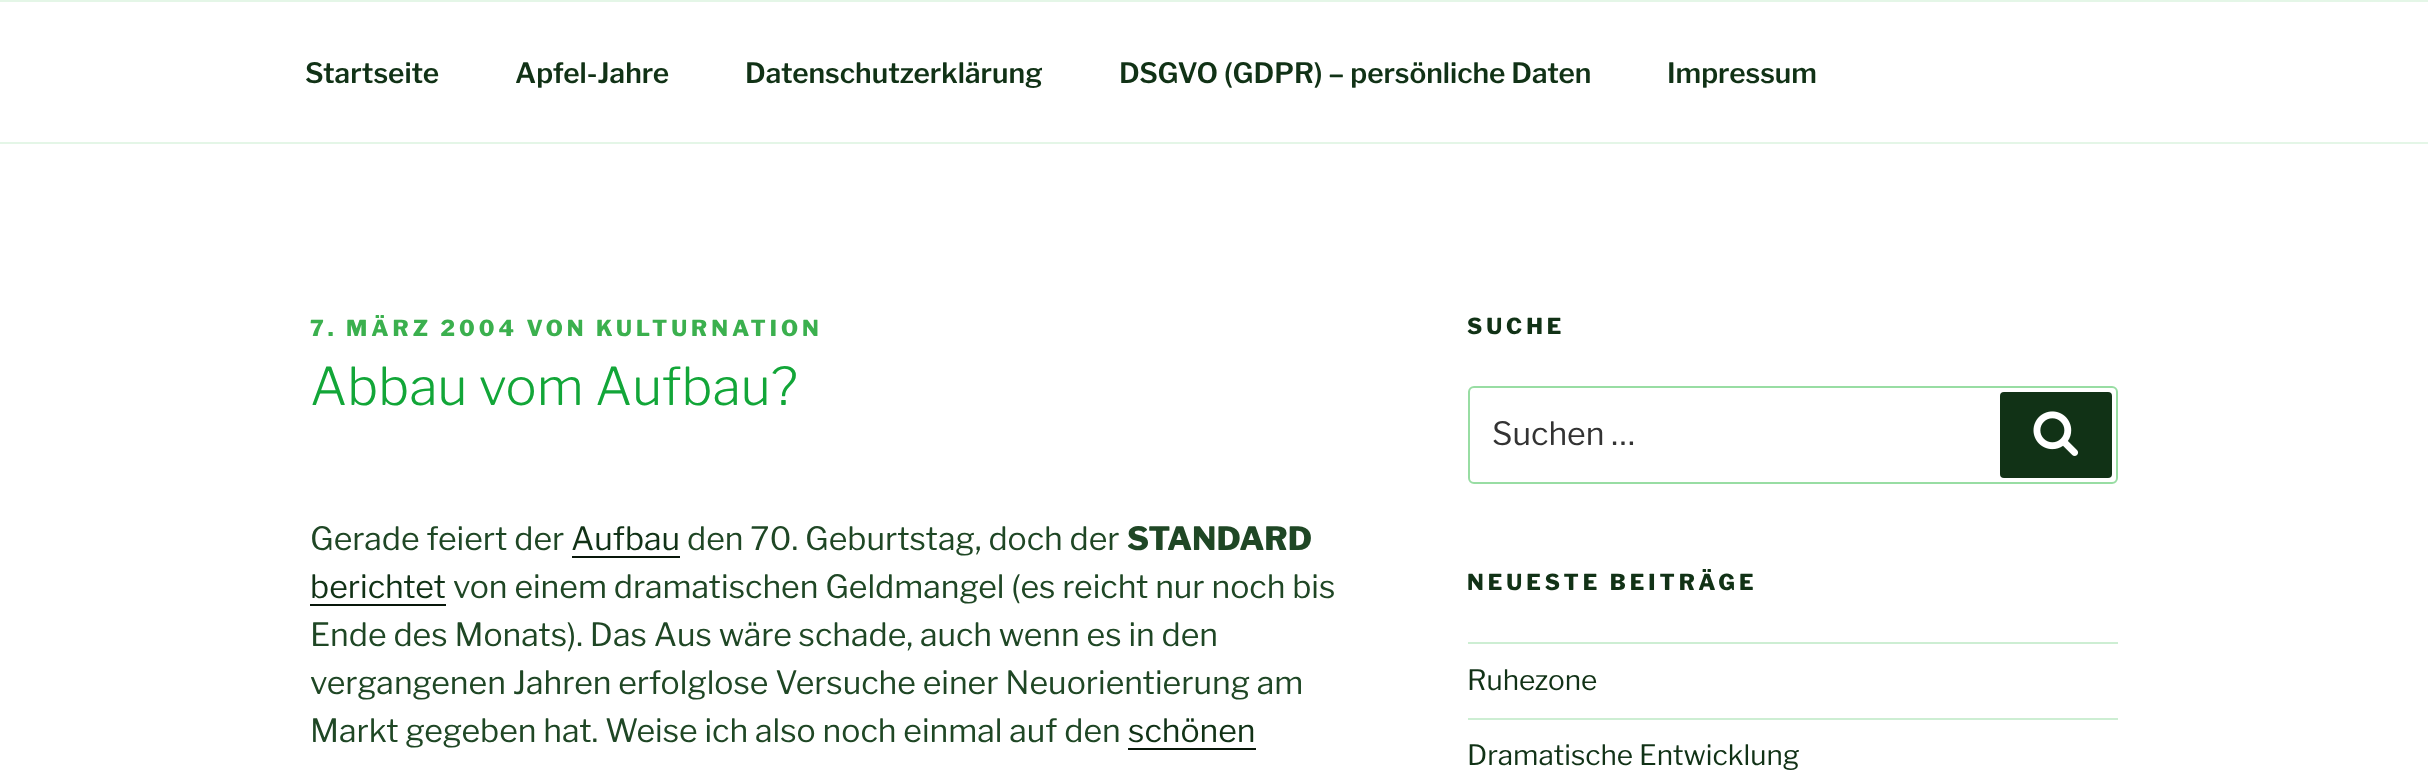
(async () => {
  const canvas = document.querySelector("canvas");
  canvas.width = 2428;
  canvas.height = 781;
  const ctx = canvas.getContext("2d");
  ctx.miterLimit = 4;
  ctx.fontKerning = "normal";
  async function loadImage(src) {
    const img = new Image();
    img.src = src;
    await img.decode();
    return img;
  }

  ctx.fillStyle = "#ffffff";
  ctx.fillRect(0, 0, 2428, 781);
  for (const [x, y, w, h, color] of [
    [0, 0, 2428, 2, "#e4f6e7"],
    [0, 142, 2428, 2, "#e4f6e7"],
    [572, 556, 108, 2, "#08170a"],
    [310, 604, 136, 2, "#08170a"],
    [1128, 748, 128, 2, "#08170a"],
  ]) {
    ctx.fillStyle = color;
    ctx.fillRect(x, y, w, h);
  }
  ctx.beginPath();
  ctx.roundRect(1469, 387, 648, 96, 5);
  ctx.strokeStyle = "#98dda3";
  ctx.lineWidth = 2;
  ctx.stroke();
  ctx.fillStyle = "#113216";
  ctx.beginPath();
  ctx.roundRect(2000, 392, 112, 86, 4);
  ctx.fill();
  ctx.drawImage(await loadImage("img/1.png"), 2033, 411, 46, 45);
  ctx.fillStyle = "#cdeed3";
  ctx.fillRect(1468, 642, 650, 2);
  ctx.fillRect(1468, 718, 650, 2);
  ctx.font = "100 28px 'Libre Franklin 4'";
  ctx.fillStyle = "#113216";
  for (const [text, x, y] of [
    ["Startseite", 305, 83],
    ["Apfel-Jahre", 515, 83],
    ["Datenschutzerklärung", 745, 83],
    ["DSGVO (GDPR) – persönliche Daten", 1119, 83],
    ["Impressum", 1667, 83],
  ]) {
    ctx.fillText(text, x, y);
  }
  ctx.letterSpacing = "4px";
  ctx.font = "100 22px Libre Franklin";
  ctx.fillStyle = "#3bb04e";
  ctx.fillText("7. MÄRZ 2004 VON KULTURNATION", 310, 336);
  ctx.letterSpacing = "0px";
  ctx.font = "100 52px 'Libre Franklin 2'";
  ctx.fillStyle = "#12a638";
  ctx.fillText("Abbau vom Aufbau?", 310, 405);
  ctx.font = "100 32px 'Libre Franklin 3'";
  ctx.fillStyle = "#1f4725";
  ctx.fillText("Gerade feiert der", 310, 550);
  ctx.fillStyle = "#113216";
  ctx.fillText("Aufbau", 571, 550);
  ctx.fillStyle = "#1f4725";
  ctx.fillText("den 70. Geburtstag, doch der", 687, 550);
  ctx.font = "100 32px Libre Franklin";
  ctx.fillText("STANDARD", 1127, 550);
  ctx.font = "100 32px 'Libre Franklin 3'";
  ctx.fillStyle = "#113216";
  ctx.fillText("berichtet", 310, 598);
  ctx.fillStyle = "#1f4725";
  for (const [text, x, y] of [
    ["von einem dramatischen Geldmangel (es reicht nur noch bis", 453, 598],
    ["Ende des Monats). Das Aus wäre schade, auch wenn es in den", 310, 646],
    ["vergangenen Jahren erfolglose Versuche einer Neuorientierung am", 310, 694],
    ["Markt gegeben hat. Weise ich also noch einmal auf den", 310, 742],
  ]) {
    ctx.fillText(text, x, y);
  }
  ctx.fillStyle = "#113216";
  ctx.fillText("schönen", 1128, 742);
  ctx.letterSpacing = "4px";
  ctx.font = "100 22px Libre Franklin";
  ctx.fillText("SUCHE", 1467, 334);
  ctx.letterSpacing = "0px";
  ctx.font = "100 32px 'Libre Franklin 3'";
  ctx.fillStyle = "#333333";
  ctx.fillText("Suchen …", 1492, 445);
  ctx.letterSpacing = "4px";
  ctx.font = "100 22px Libre Franklin";
  ctx.fillStyle = "#113216";
  ctx.fillText("NEUESTE BEITRÄGE", 1467, 590);
  ctx.letterSpacing = "0px";
  ctx.font = "100 28px 'Libre Franklin 3'";
  ctx.fillText("Ruhezone", 1467, 690);
  ctx.fillText("Dramatische Entwicklung", 1467, 765);
})();
